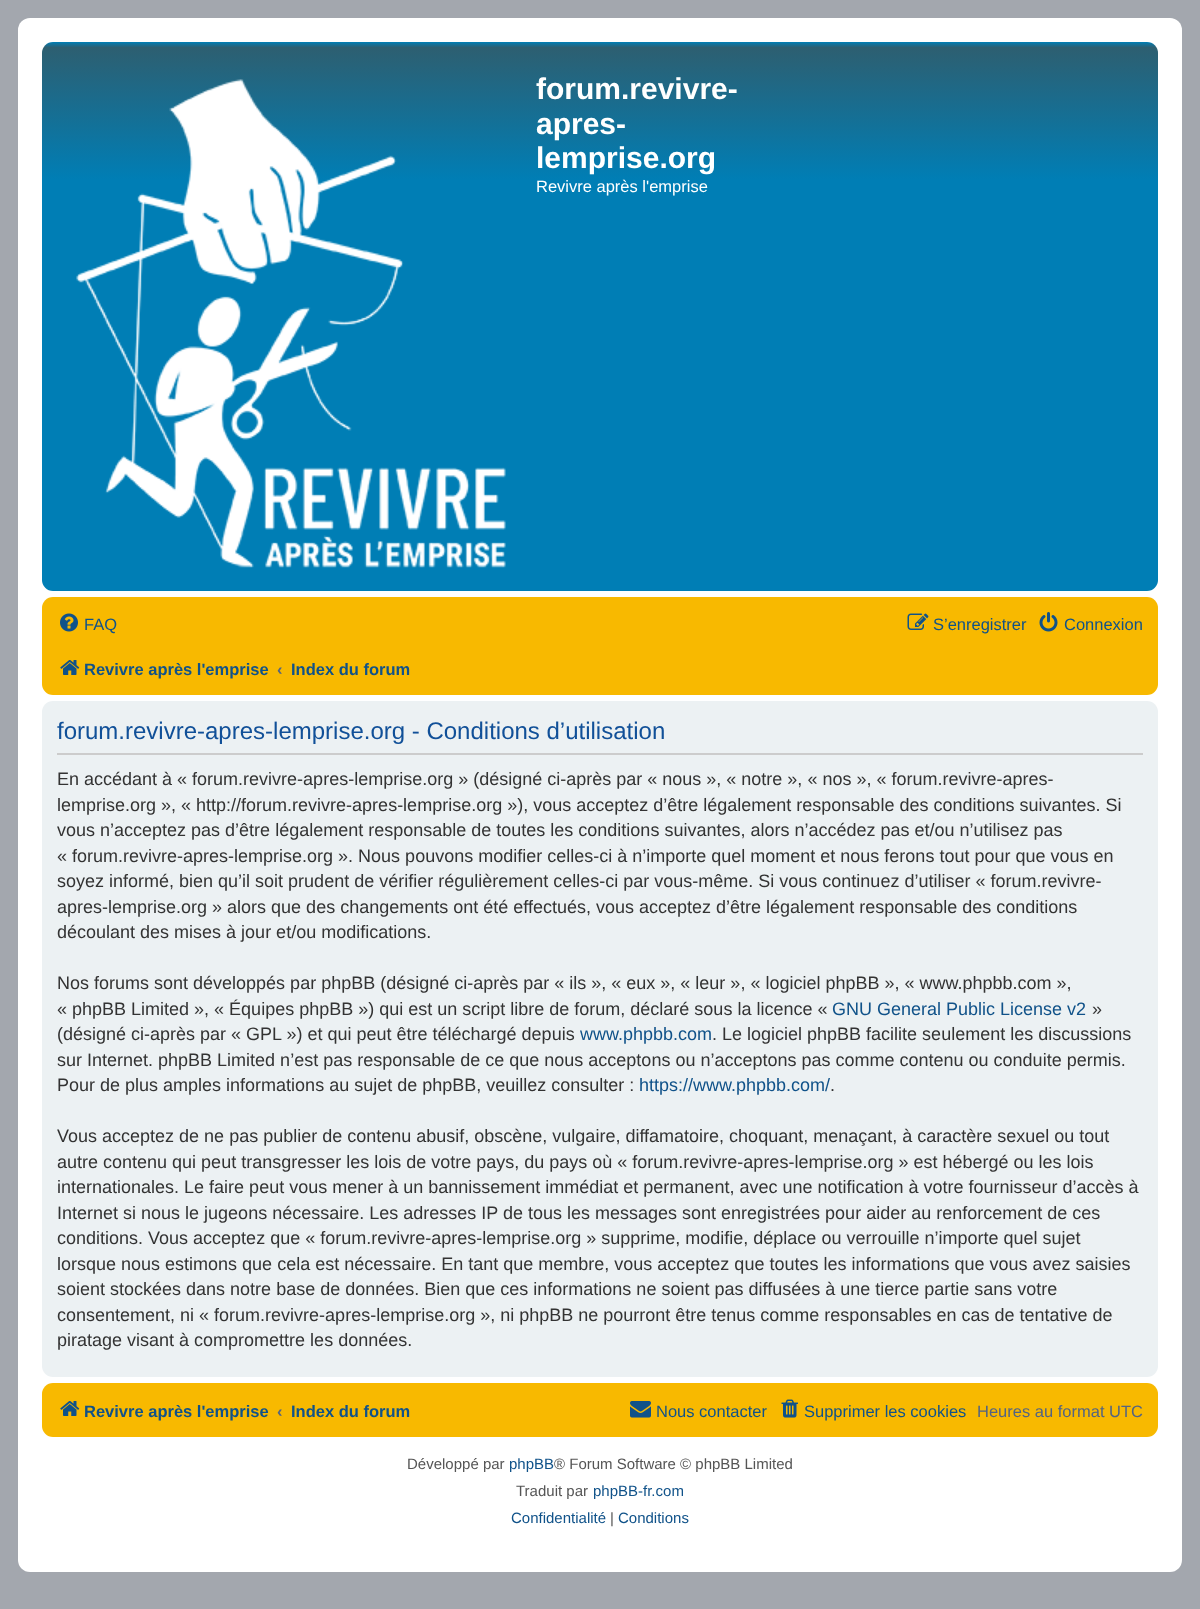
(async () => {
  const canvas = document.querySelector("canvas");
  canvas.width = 1200;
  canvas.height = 1609;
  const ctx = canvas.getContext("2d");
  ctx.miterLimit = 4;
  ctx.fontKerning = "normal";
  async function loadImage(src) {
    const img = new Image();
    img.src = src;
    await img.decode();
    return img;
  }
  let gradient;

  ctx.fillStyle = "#a3a7ae";
  ctx.fillRect(0, 0, 1200, 1609);
  ctx.fillStyle = "#ffffff";
  ctx.beginPath();
  ctx.roundRect(18, 18, 1164, 1554, 12);
  ctx.fill();
  gradient = ctx.createLinearGradient(600, 42, 600, 591);
  gradient.addColorStop(0, "#007eb5");
  gradient.addColorStop(0.01, "#2d5f71");
  gradient.addColorStop(0.25, "#007eb5");
  gradient.addColorStop(1, "#007eb5");
  ctx.fillStyle = gradient;
  ctx.beginPath();
  ctx.roundRect(42, 42, 1116, 549, 11);
  ctx.fill();
  ctx.drawImage(await loadImage("img/1.png"), 76, 79, 430, 489);
  ctx.fillStyle = "#f8b900";
  ctx.beginPath();
  ctx.roundRect(42, 597, 1116, 98, 11);
  ctx.fill();
  ctx.drawImage(await loadImage("img/2.png"), 60, 613, 18, 19);
  ctx.drawImage(await loadImage("img/3.png"), 907, 613, 22, 17);
  ctx.drawImage(await loadImage("img/4.png"), 1039, 612, 19, 20);
  ctx.drawImage(await loadImage("img/5.png"), 60, 660, 20, 15);
  ctx.fillStyle = "#ecf1f3";
  ctx.beginPath();
  ctx.roundRect(42, 701, 1116, 676, 11);
  ctx.fill();
  ctx.fillStyle = "#cccccc";
  ctx.fillRect(57, 753, 1086, 2);
  ctx.fillStyle = "#f8b900";
  ctx.beginPath();
  ctx.roundRect(42, 1383, 1116, 54, 11);
  ctx.fill();
  ctx.drawImage(await loadImage("img/5.png"), 60, 1401, 20, 15);
  ctx.drawImage(await loadImage("img/6.png"), 630, 1401, 21, 17);
  ctx.drawImage(await loadImage("img/7.png"), 781, 1399, 17, 19);
  ctx.font = "bold 30px Liberation Sans";
  ctx.fillStyle = "#ffffff";
  for (const [text, x, y] of [
    ["forum.revivre-", 536, 99],
    ["apres-", 536, 134],
    ["lemprise.org", 536, 168],
  ]) {
    ctx.fillText(text, x, y);
  }
  ctx.font = "16.5px Liberation Sans";
  ctx.fillText("Revivre après l'emprise", 536, 192);
  ctx.fillStyle = "#105289";
  for (const [text, x, y] of [
    ["FAQ", 84, 630],
    ["S’enregistrer", 933, 630],
    ["Connexion", 1064, 630],
  ]) {
    ctx.fillText(text, x, y);
  }
  ctx.font = "bold 16.5px Liberation Sans";
  ctx.fillText("Revivre après l'emprise", 84, 675);
  ctx.fillStyle = "#536482";
  ctx.fillText("‹", 277, 675);
  ctx.fillStyle = "#105289";
  ctx.fillText("Index du forum", 291, 675);
  ctx.font = "24px Liberation Sans";
  ctx.fillStyle = "#115098";
  ctx.fillText("forum.revivre-apres-lemprise.org - Conditions d’utilisation", 57, 739);
  ctx.font = "18px Liberation Sans";
  ctx.fillStyle = "#333333";
  for (const [text, x, y] of [
    ["En accédant à « forum.revivre-apres-lemprise.org » (désigné ci-après par « nous », « notre », « nos », « forum.revivre-apres-", 57, 785],
    ["lemprise.org », « http://forum.revivre-apres-lemprise.org »), vous acceptez d’être légalement responsable des conditions suivantes. Si", 57, 811],
    ["vous n’acceptez pas d’être légalement responsable de toutes les conditions suivantes, alors n’accédez pas et/ou n’utilisez pas", 57, 836],
    ["« forum.revivre-apres-lemprise.org ». Nous pouvons modifier celles-ci à n’importe quel moment et nous ferons tout pour que vous en", 57, 862],
    ["soyez informé, bien qu’il soit prudent de vérifier régulièrement celles-ci par vous-même. Si vous continuez d’utiliser « forum.revivre-", 57, 887],
    ["apres-lemprise.org » alors que des changements ont été effectués, vous acceptez d’être légalement responsable des conditions", 57, 913],
    ["découlant des mises à jour et/ou modifications.", 57, 938],
    ["Nos forums sont développés par phpBB (désigné ci-après par « ils », « eux », « leur », « logiciel phpBB », « www.phpbb.com »,", 57, 989],
    ["« phpBB Limited », « Équipes phpBB ») qui est un script libre de forum, déclaré sous la licence «", 57, 1015],
  ]) {
    ctx.fillText(text, x, y);
  }
  ctx.fillStyle = "#105289";
  ctx.fillText("GNU General Public License v2", 832, 1015);
  ctx.fillStyle = "#333333";
  ctx.fillText("»", 1092, 1015);
  ctx.fillText("(désigné ci-après par « GPL ») et qui peut être téléchargé depuis", 57, 1040);
  ctx.fillStyle = "#105289";
  ctx.fillText("www.phpbb.com", 580, 1040);
  ctx.fillStyle = "#333333";
  for (const [text, x, y] of [
    [". Le logiciel phpBB facilite seulement les discussions", 712, 1040],
    ["sur Internet. phpBB Limited n’est pas responsable de ce que nous acceptons ou n’acceptons pas comme contenu ou conduite permis.", 57, 1066],
    ["Pour de plus amples informations au sujet de phpBB, veuillez consulter :", 57, 1091],
  ]) {
    ctx.fillText(text, x, y);
  }
  ctx.fillStyle = "#105289";
  ctx.fillText("https://www.phpbb.com/", 639, 1091);
  ctx.fillStyle = "#333333";
  for (const [text, x, y] of [
    [".", 830, 1091],
    ["Vous acceptez de ne pas publier de contenu abusif, obscène, vulgaire, diffamatoire, choquant, menaçant, à caractère sexuel ou tout", 57, 1142],
    ["autre contenu qui peut transgresser les lois de votre pays, du pays où « forum.revivre-apres-lemprise.org » est hébergé ou les lois", 57, 1168],
    ["internationales. Le faire peut vous mener à un bannissement immédiat et permanent, avec une notification à votre fournisseur d’accès à", 57, 1193],
    ["Internet si nous le jugeons nécessaire. Les adresses IP de tous les messages sont enregistrées pour aider au renforcement de ces", 57, 1219],
    ["conditions. Vous acceptez que « forum.revivre-apres-lemprise.org » supprime, modifie, déplace ou verrouille n’importe quel sujet", 57, 1244],
    ["lorsque nous estimons que cela est nécessaire. En tant que membre, vous acceptez que toutes les informations que vous avez saisies", 57, 1270],
    ["soient stockées dans notre base de données. Bien que ces informations ne soient pas diffusées à une tierce partie sans votre", 57, 1295],
    ["consentement, ni « forum.revivre-apres-lemprise.org », ni phpBB ne pourront être tenus comme responsables en cas de tentative de", 57, 1321],
    ["piratage visant à compromettre les données.", 57, 1346],
  ]) {
    ctx.fillText(text, x, y);
  }
  ctx.font = "bold 16.5px Liberation Sans";
  ctx.fillStyle = "#105289";
  ctx.fillText("Revivre après l'emprise", 84, 1417);
  ctx.fillStyle = "#536482";
  ctx.fillText("‹", 277, 1417);
  ctx.fillStyle = "#105289";
  ctx.fillText("Index du forum", 291, 1417);
  ctx.font = "16.5px Liberation Sans";
  ctx.fillText("Nous contacter", 656, 1417);
  ctx.fillText("Supprimer les cookies", 804, 1417);
  ctx.fillStyle = "#536482";
  ctx.fillText("Heures au format UTC", 977, 1417);
  ctx.font = "15px Liberation Sans";
  ctx.fillStyle = "#555555";
  ctx.fillText("Développé par", 407, 1469);
  ctx.fillStyle = "#105289";
  ctx.fillText("phpBB", 509, 1469);
  ctx.fillStyle = "#555555";
  ctx.fillText("® Forum Software © phpBB Limited", 554, 1469);
  ctx.fillText("Traduit par", 516, 1496);
  ctx.fillStyle = "#105289";
  ctx.fillText("phpBB-fr.com", 593, 1496);
  ctx.fillText("Confidentialité", 511, 1523);
  ctx.fillStyle = "#555555";
  ctx.fillText("|", 610, 1523);
  ctx.fillStyle = "#105289";
  ctx.fillText("Conditions", 618, 1523);
})();
